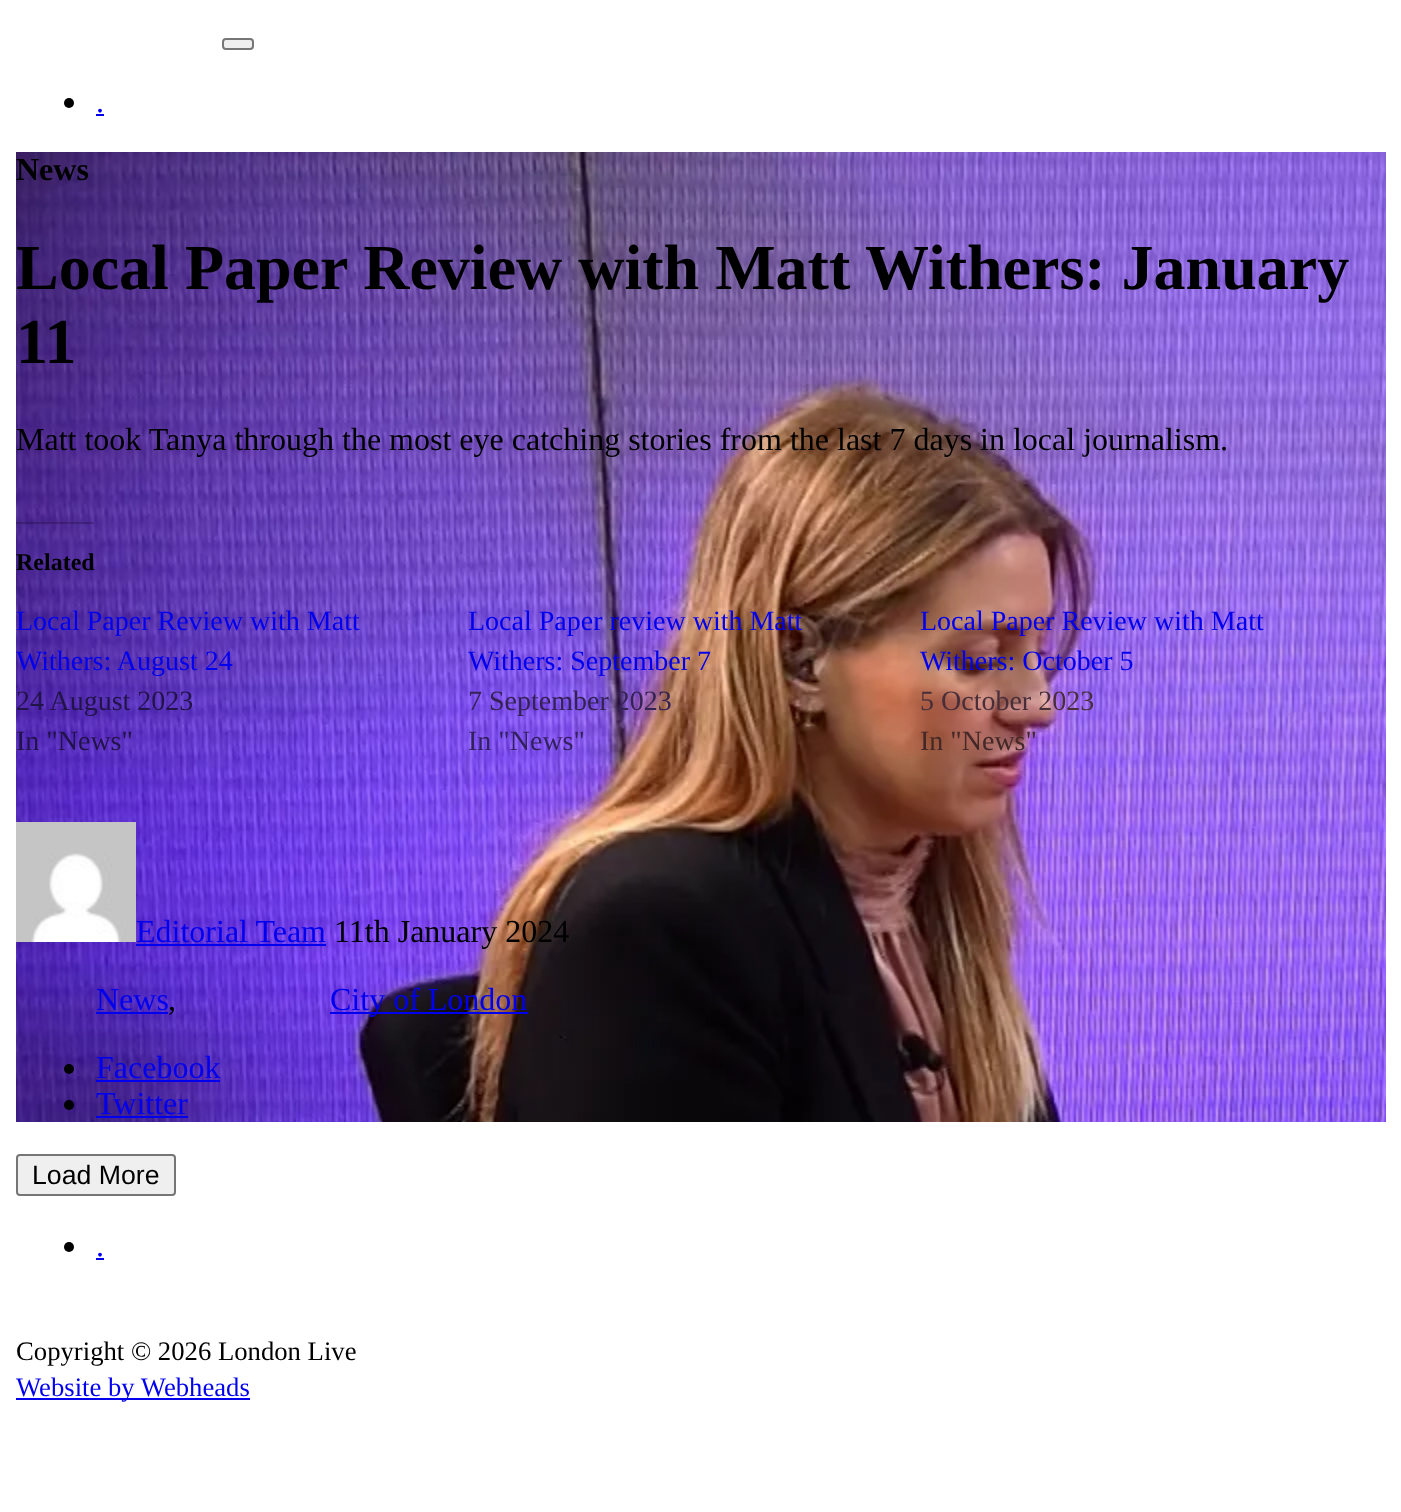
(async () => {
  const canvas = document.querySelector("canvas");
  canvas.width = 1401;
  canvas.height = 1512;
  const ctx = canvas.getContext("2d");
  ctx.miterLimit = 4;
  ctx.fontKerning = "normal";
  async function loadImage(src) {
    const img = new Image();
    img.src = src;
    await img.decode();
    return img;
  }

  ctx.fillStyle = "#ffffff";
  ctx.fillRect(0, 0, 1401, 1512);
  ctx.fillStyle = "#efefef";
  ctx.beginPath();
  ctx.roundRect(223, 39, 30, 10, 3);
  ctx.fill();
  ctx.strokeStyle = "#767676";
  ctx.lineWidth = 2;
  ctx.stroke();
  ctx.fillStyle = "#000000";
  ctx.beginPath();
  ctx.arc(69, 103, 5, 0, Math.PI * 2);
  ctx.fill();
  ctx.fillStyle = "#0000ee";
  ctx.fillRect(96, 114, 8, 2);
  ctx.drawImage(await loadImage("img/1.png"), 16, 152, 1370, 970);
  ctx.fillStyle = "rgba(0, 0, 0, 0.2)";
  ctx.fillRect(16, 522, 78, 2);
  ctx.drawImage(await loadImage("img/2.png"), 16, 822, 120, 120);
  for (const [x, y, w, h, color] of [
    [136, 944, 190, 2, "#0000ee"],
    [96, 1012, 72, 2, "#0000ee"],
    [330, 1012, 198, 2, "#0000ee"],
  ]) {
    ctx.fillStyle = color;
    ctx.fillRect(x, y, w, h);
  }
  ctx.fillStyle = "#000000";
  ctx.beginPath();
  ctx.arc(69, 1069, 5, 0, Math.PI * 2);
  ctx.fill();
  ctx.fillStyle = "#0000ee";
  ctx.fillRect(96, 1080, 124, 2);
  ctx.fillStyle = "#000000";
  ctx.beginPath();
  ctx.arc(69, 1105, 5, 0, Math.PI * 2);
  ctx.fill();
  ctx.fillStyle = "#0000ee";
  ctx.fillRect(96, 1116, 92, 2);
  ctx.fillStyle = "#efefef";
  ctx.beginPath();
  ctx.roundRect(17, 1155, 158, 40, 3);
  ctx.fill();
  ctx.stroke();
  ctx.fillStyle = "#000000";
  ctx.beginPath();
  ctx.arc(69, 1247, 5, 0, Math.PI * 2);
  ctx.fill();
  ctx.fillStyle = "#0000ee";
  ctx.fillRect(96, 1258, 8, 2);
  ctx.fillRect(16, 1398, 234, 2);
  ctx.font = "32px Liberation Serif";
  ctx.fillText(".", 96, 112);
  ctx.font = "bold 32px Liberation Serif";
  ctx.fillStyle = "#000000";
  ctx.fillText("News", 16, 180);
  ctx.font = "bold 64px Liberation Serif";
  ctx.fillText("Local Paper Review with Matt Withers: January", 16, 289);
  ctx.fillText("11", 16, 363);
  ctx.font = "32px Liberation Serif";
  ctx.fillText("Matt took Tanya through the most eye catching stories from the last 7 days in local journalism.", 16, 450);
  ctx.font = "bold 24px Liberation Serif";
  ctx.fillText("Related", 16, 570);
  ctx.font = "28px Liberation Serif";
  ctx.fillStyle = "#0000ee";
  ctx.fillText("Local Paper Review with Matt", 16, 630);
  ctx.fillText("Withers: August 24", 16, 670);
  ctx.fillStyle = "#221348";
  ctx.fillText("24 August 2023", 16, 710);
  ctx.fillText("In \"News\"", 16, 750);
  ctx.fillStyle = "#0000ee";
  ctx.fillText("Local Paper review with Matt", 468, 630);
  ctx.fillText("Withers: September 7", 468, 670);
  ctx.fillStyle = "#342252";
  ctx.fillText("7 September 2023", 468, 710);
  ctx.fillStyle = "#33215e";
  ctx.fillText("In \"News\"", 468, 750);
  ctx.fillStyle = "#0000ee";
  ctx.fillText("Local Paper Review with Matt", 920, 630);
  ctx.fillText("Withers: October 5", 920, 670);
  ctx.fillStyle = "#472e39";
  ctx.fillText("5 October 2023", 920, 710);
  ctx.fillStyle = "#422826";
  ctx.fillText("In \"News\"", 920, 750);
  ctx.font = "32px Liberation Serif";
  ctx.fillStyle = "#0000ee";
  ctx.fillText("Editorial Team", 136, 942);
  ctx.fillStyle = "#000000";
  ctx.fillText("11th January 2024", 334, 942);
  ctx.fillStyle = "#0000ee";
  ctx.fillText("News", 96, 1010);
  ctx.fillStyle = "#000000";
  ctx.fillText(",", 168, 1010);
  ctx.fillStyle = "#0000ee";
  for (const [text, x, y] of [
    ["City of London", 330, 1010],
    ["Facebook", 96, 1078],
    ["Twitter", 96, 1114],
  ]) {
    ctx.fillText(text, x, y);
  }
  ctx.font = "26.7px Liberation Sans";
  ctx.fillStyle = "#000000";
  ctx.fillText("Load More", 32, 1184);
  ctx.font = "32px Liberation Serif";
  ctx.fillStyle = "#0000ee";
  ctx.fillText(".", 96, 1256);
  ctx.font = "26.7px Liberation Serif";
  ctx.fillStyle = "#000000";
  ctx.fillText("Copyright © 2026 London Live", 16, 1360);
  ctx.fillStyle = "#0000ee";
  ctx.fillText("Website by Webheads", 16, 1396);
})();
